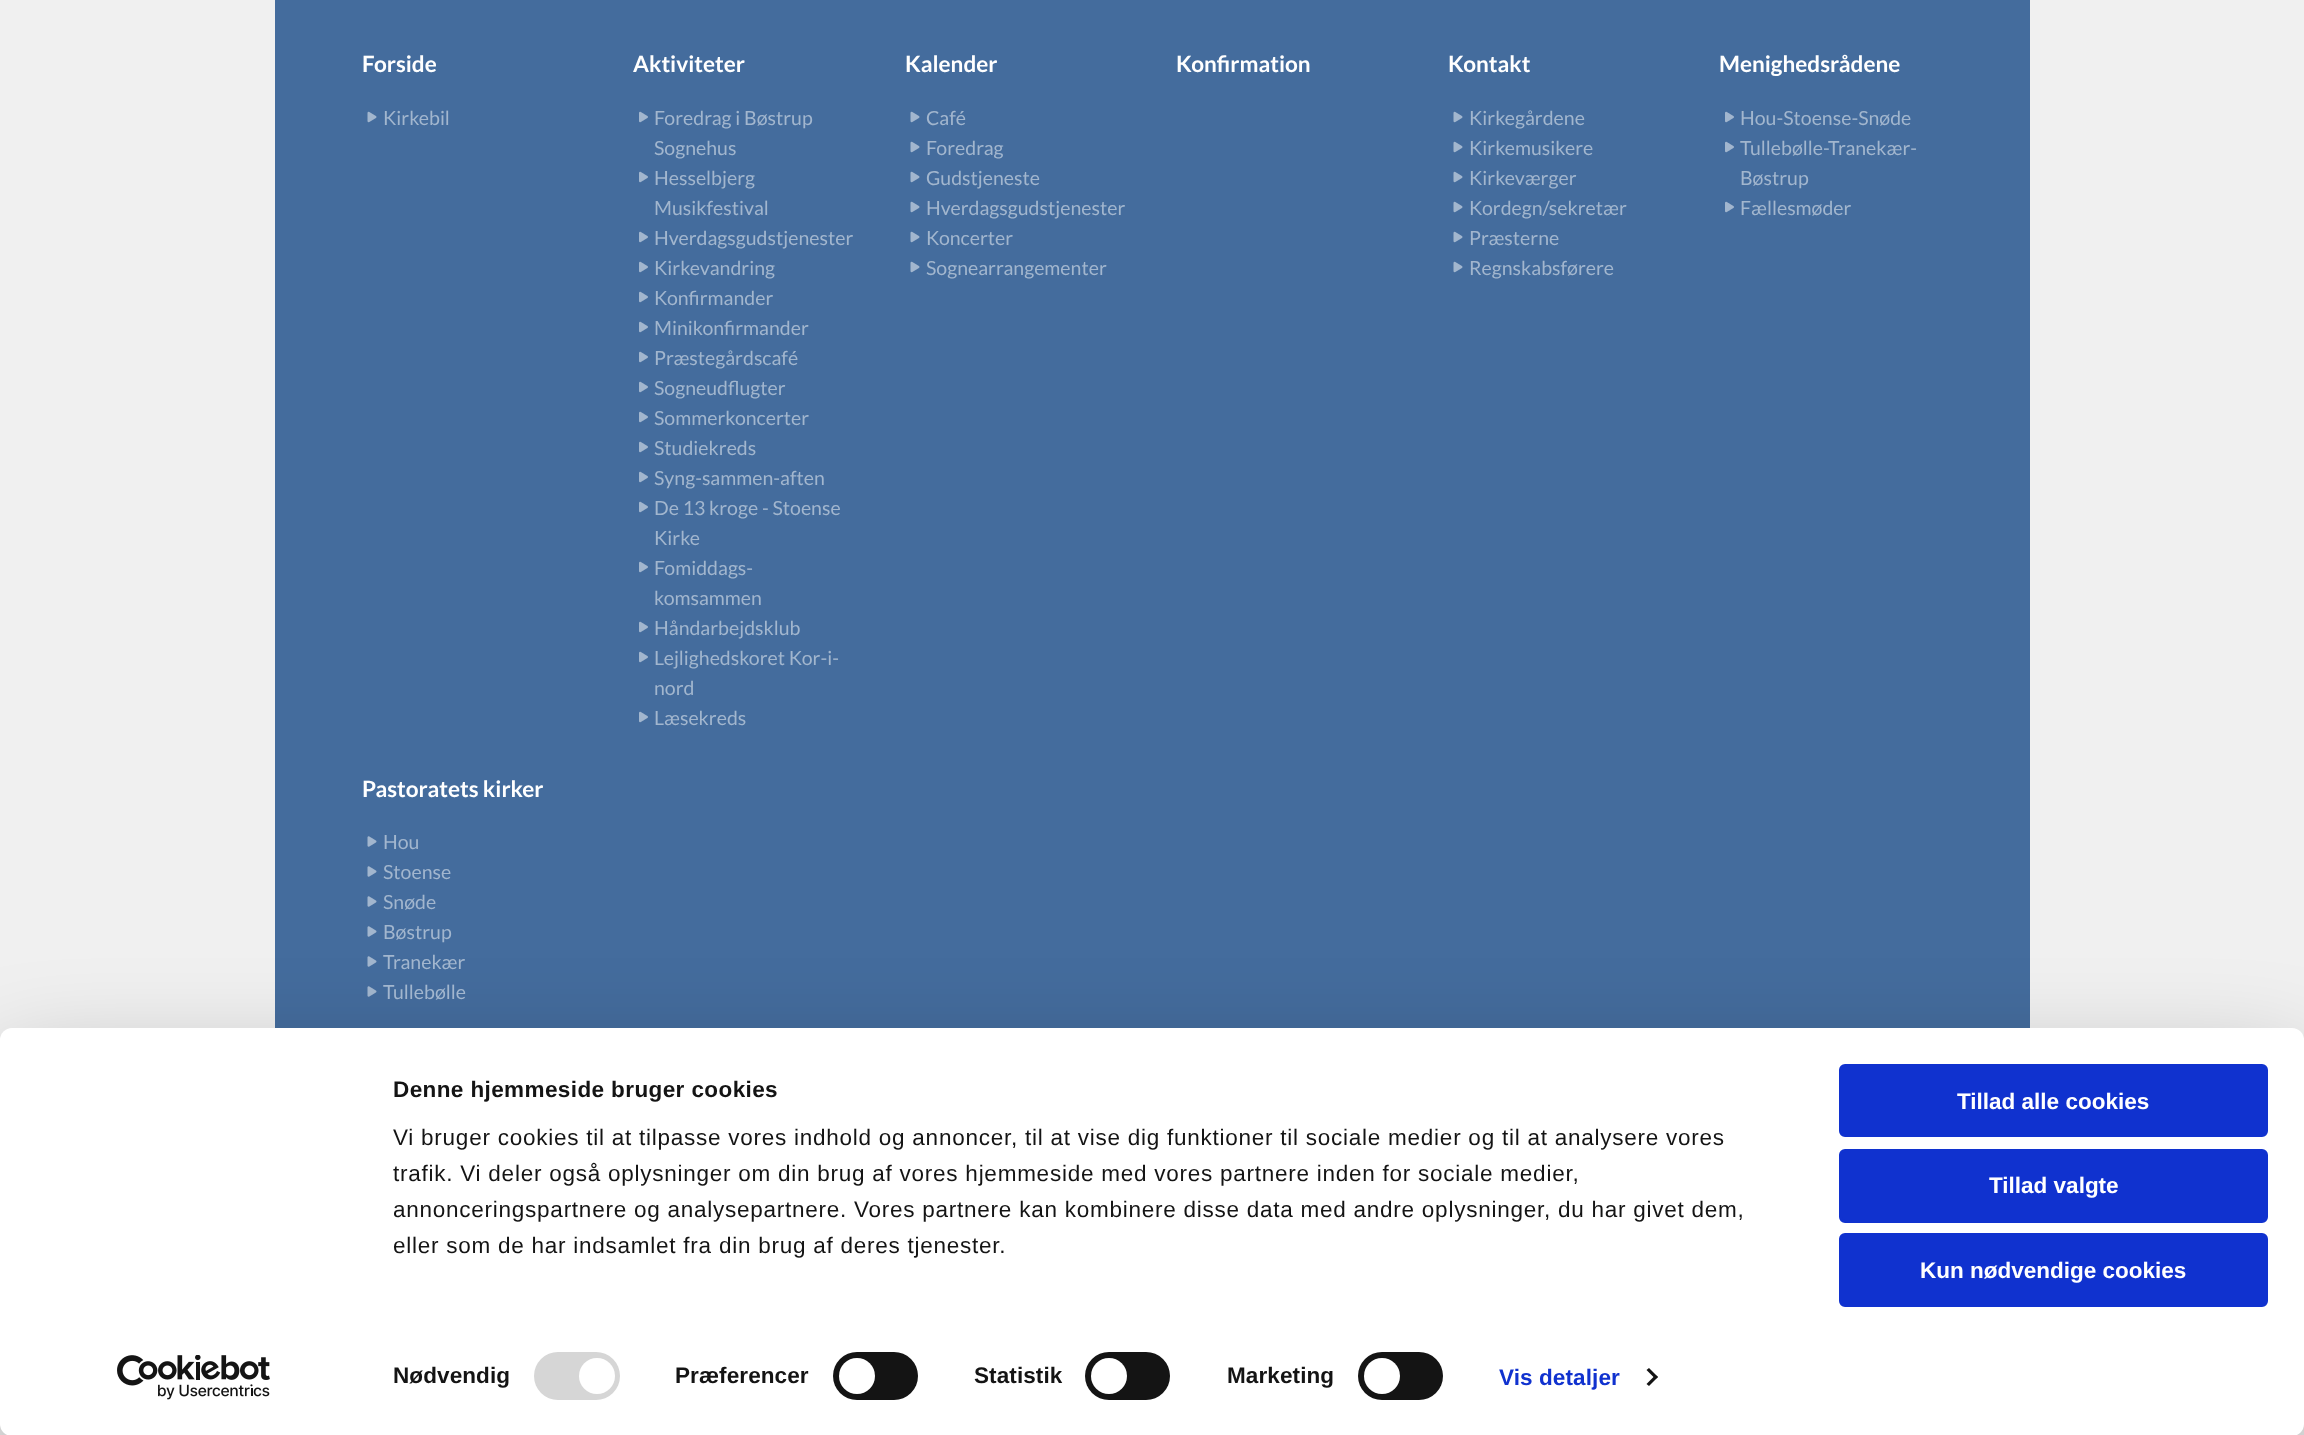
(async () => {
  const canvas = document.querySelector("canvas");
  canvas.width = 2304;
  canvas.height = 1435;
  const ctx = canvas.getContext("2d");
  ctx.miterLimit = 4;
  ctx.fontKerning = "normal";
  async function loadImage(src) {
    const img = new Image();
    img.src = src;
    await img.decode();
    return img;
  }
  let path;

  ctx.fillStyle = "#f0f0f0";
  ctx.fillRect(0, 0, 2304, 1435);
  ctx.fillStyle = "#446c9d";
  ctx.fillRect(275, 0, 1755, 1028);
  ctx.drawImage(await loadImage("img/1.png"), 367, 111, 10, 12);
  ctx.drawImage(await loadImage("img/2.png"), 639, 111, 9, 12);
  ctx.drawImage(await loadImage("img/2.png"), 639, 171, 9, 12);
  ctx.drawImage(await loadImage("img/2.png"), 639, 231, 9, 12);
  ctx.drawImage(await loadImage("img/2.png"), 639, 261, 9, 12);
  ctx.drawImage(await loadImage("img/2.png"), 639, 291, 9, 12);
  ctx.drawImage(await loadImage("img/2.png"), 639, 321, 9, 12);
  ctx.drawImage(await loadImage("img/2.png"), 639, 351, 9, 12);
  ctx.drawImage(await loadImage("img/2.png"), 639, 381, 9, 12);
  ctx.drawImage(await loadImage("img/2.png"), 639, 411, 9, 12);
  ctx.drawImage(await loadImage("img/2.png"), 639, 441, 9, 12);
  ctx.drawImage(await loadImage("img/2.png"), 639, 471, 9, 12);
  ctx.drawImage(await loadImage("img/2.png"), 639, 501, 9, 12);
  ctx.drawImage(await loadImage("img/2.png"), 639, 561, 9, 12);
  ctx.drawImage(await loadImage("img/2.png"), 639, 621, 9, 12);
  ctx.drawImage(await loadImage("img/2.png"), 639, 651, 9, 12);
  ctx.drawImage(await loadImage("img/2.png"), 639, 711, 9, 12);
  ctx.drawImage(await loadImage("img/1.png"), 910, 111, 10, 12);
  ctx.drawImage(await loadImage("img/1.png"), 910, 141, 10, 12);
  ctx.drawImage(await loadImage("img/1.png"), 910, 171, 10, 12);
  ctx.drawImage(await loadImage("img/1.png"), 910, 201, 10, 12);
  ctx.drawImage(await loadImage("img/1.png"), 910, 231, 10, 12);
  ctx.drawImage(await loadImage("img/1.png"), 910, 261, 10, 12);
  ctx.drawImage(await loadImage("img/1.png"), 1453, 111, 10, 12);
  ctx.drawImage(await loadImage("img/1.png"), 1453, 141, 10, 12);
  ctx.drawImage(await loadImage("img/1.png"), 1453, 171, 10, 12);
  ctx.drawImage(await loadImage("img/1.png"), 1453, 201, 10, 12);
  ctx.drawImage(await loadImage("img/1.png"), 1453, 231, 10, 12);
  ctx.drawImage(await loadImage("img/1.png"), 1453, 261, 10, 12);
  ctx.drawImage(await loadImage("img/2.png"), 1725, 111, 9, 12);
  ctx.drawImage(await loadImage("img/2.png"), 1725, 141, 9, 12);
  ctx.drawImage(await loadImage("img/2.png"), 1725, 201, 9, 12);
  ctx.drawImage(await loadImage("img/3.png"), 367, 836, 10, 11);
  ctx.drawImage(await loadImage("img/3.png"), 367, 866, 10, 11);
  ctx.drawImage(await loadImage("img/3.png"), 367, 896, 10, 11);
  ctx.drawImage(await loadImage("img/3.png"), 367, 926, 10, 11);
  ctx.drawImage(await loadImage("img/3.png"), 367, 956, 10, 11);
  ctx.drawImage(await loadImage("img/3.png"), 367, 986, 10, 11);
  ctx.fillStyle = "rgba(0, 0, 0, 0.3)";
  ctx.filter = "blur(52.5px)";
  ctx.beginPath();
  ctx.roundRect(0, 1073, 2304, 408, 12);
  ctx.fill();
  ctx.filter = "none";
  ctx.fillStyle = "#ffffff";
  ctx.beginPath();
  ctx.roundRect(0, 1028, 2304, 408, 12);
  ctx.fill();
  ctx.fillStyle = "#d6d6d6";
  ctx.beginPath();
  ctx.roundRect(534, 1352, 86, 48, 24);
  ctx.fill();
  ctx.fillStyle = "#ffffff";
  ctx.beginPath();
  ctx.arc(597, 1376, 18, 0, Math.PI * 2);
  ctx.fill();
  ctx.fillStyle = "#141414";
  ctx.beginPath();
  ctx.roundRect(833, 1352, 85, 48, 24);
  ctx.fill();
  ctx.fillStyle = "#ffffff";
  ctx.beginPath();
  ctx.arc(857, 1376, 18, 0, Math.PI * 2);
  ctx.fill();
  ctx.fillStyle = "#141414";
  ctx.beginPath();
  ctx.roundRect(1085, 1352, 85, 48, 24);
  ctx.fill();
  ctx.fillStyle = "#ffffff";
  ctx.beginPath();
  ctx.arc(1109, 1376, 18, 0, Math.PI * 2);
  ctx.fill();
  ctx.fillStyle = "#141414";
  ctx.beginPath();
  ctx.roundRect(1358, 1352, 85, 48, 24);
  ctx.fill();
  ctx.fillStyle = "#ffffff";
  ctx.beginPath();
  ctx.arc(1382, 1376, 18, 0, Math.PI * 2);
  ctx.fill();
  ctx.fillStyle = "#141414";
  path = new Path2D("M1649 1368L1658 1377L1655.5 1379L1646.5 1370Z");
  ctx.fill(path);
  path = new Path2D("M1655.5 1375L1658 1377L1649 1386L1646.5 1384Z");
  ctx.fill(path);
  ctx.fillStyle = "#1032cf";
  ctx.beginPath();
  ctx.roundRect(1840.5, 1065.5, 426, 70, 4.5);
  ctx.fill();
  ctx.strokeStyle = "#1032cf";
  ctx.lineWidth = 3;
  ctx.stroke();
  ctx.beginPath();
  ctx.roundRect(1840.5, 1150.5, 426, 71, 4.5);
  ctx.fill();
  ctx.stroke();
  ctx.beginPath();
  ctx.roundRect(1840.5, 1234.5, 426, 71, 4.5);
  ctx.fill();
  ctx.stroke();
  ctx.drawImage(await loadImage("img/4.png"), 117, 1355, 153, 45);
  ctx.font = "bold 22.5px Lato";
  ctx.fillStyle = "#ffffff";
  ctx.fillText("Forside", 362, 72);
  ctx.font = "19.5px Lato";
  ctx.fillStyle = "#a2b6ce";
  ctx.fillText("Kirkebil", 383, 125);
  ctx.font = "bold 22.5px Lato";
  ctx.fillStyle = "#ffffff";
  ctx.fillText("Aktiviteter", 633, 72);
  ctx.font = "19.5px Lato";
  ctx.fillStyle = "#a2b6ce";
  for (const [text, x, y] of [
    ["Foredrag i Bøstrup", 654, 125],
    ["Sognehus", 654, 155],
    ["Hesselbjerg", 654, 185],
    ["Musikfestival", 654, 215],
    ["Hverdagsgudstjenester", 654, 245],
    ["Kirkevandring", 654, 275],
    ["Konfirmander", 654, 305],
    ["Minikonfirmander", 654, 335],
    ["Præstegårdscafé", 654, 365],
    ["Sogneudflugter", 654, 395],
    ["Sommerkoncerter", 654, 425],
    ["Studiekreds", 654, 455],
    ["Syng-sammen-aften", 654, 485],
    ["De 13 kroge - Stoense", 654, 515],
    ["Kirke", 654, 545],
    ["Fomiddags-", 654, 575],
    ["komsammen", 654, 605],
    ["Håndarbejdsklub", 654, 635],
    ["Lejlighedskoret Kor-i-", 654, 665],
    ["nord", 654, 695],
    ["Læsekreds", 654, 725],
  ]) {
    ctx.fillText(text, x, y);
  }
  ctx.font = "bold 22.5px Lato";
  ctx.fillStyle = "#ffffff";
  ctx.fillText("Kalender", 905, 72);
  ctx.font = "19.5px Lato";
  ctx.fillStyle = "#a2b6ce";
  for (const [text, x, y] of [
    ["Café", 926, 125],
    ["Foredrag", 926, 155],
    ["Gudstjeneste", 926, 185],
    ["Hverdagsgudstjenester", 926, 215],
    ["Koncerter", 926, 245],
    ["Sognearrangementer", 926, 275],
  ]) {
    ctx.fillText(text, x, y);
  }
  ctx.font = "bold 22.5px Lato";
  ctx.fillStyle = "#ffffff";
  ctx.fillText("Konfirmation", 1176, 72);
  ctx.fillText("Kontakt", 1448, 72);
  ctx.font = "19.5px Lato";
  ctx.fillStyle = "#a2b6ce";
  for (const [text, x, y] of [
    ["Kirkegårdene", 1469, 125],
    ["Kirkemusikere", 1469, 155],
    ["Kirkeværger", 1469, 185],
    ["Kordegn/sekretær", 1469, 215],
    ["Præsterne", 1469, 245],
    ["Regnskabsførere", 1469, 275],
  ]) {
    ctx.fillText(text, x, y);
  }
  ctx.font = "bold 22.5px Lato";
  ctx.fillStyle = "#ffffff";
  ctx.fillText("Menighedsrådene", 1719, 72);
  ctx.font = "19.5px Lato";
  ctx.fillStyle = "#a2b6ce";
  for (const [text, x, y] of [
    ["Hou-Stoense-Snøde", 1740, 125],
    ["Tullebølle-Tranekær-", 1740, 155],
    ["Bøstrup", 1740, 185],
    ["Fællesmøder", 1740, 215],
  ]) {
    ctx.fillText(text, x, y);
  }
  ctx.font = "bold 22.5px Lato";
  ctx.fillStyle = "#ffffff";
  ctx.fillText("Pastoratets kirker", 362, 797);
  ctx.font = "19.5px Lato";
  ctx.fillStyle = "#a2b6ce";
  for (const [text, x, y] of [
    ["Hou", 383, 849],
    ["Stoense", 383, 879],
    ["Snøde", 383, 909],
    ["Bøstrup", 383, 939],
    ["Tranekær", 383, 969],
    ["Tullebølle", 383, 999],
  ]) {
    ctx.fillText(text, x, y);
  }
  ctx.letterSpacing = "0.4px";
  ctx.font = "bold 22.5px Liberation Sans";
  ctx.fillStyle = "#141414";
  ctx.fillText("Denne hjemmeside bruger cookies", 393, 1097);
  ctx.letterSpacing = "0.75px";
  ctx.font = "22.5px Liberation Sans";
  for (const [text, x, y] of [
    ["Vi bruger cookies til at tilpasse vores indhold og annoncer, til at vise dig funktioner til sociale medier og til at analysere vores", 393, 1145],
    ["trafik. Vi deler også oplysninger om din brug af vores hjemmeside med vores partnere inden for sociale medier,", 393, 1181],
    ["annonceringspartnere og analysepartnere. Vores partnere kan kombinere disse data med andre oplysninger, du har givet dem,", 393, 1217],
    ["eller som de har indsamlet fra din brug af deres tjenester.", 393, 1253],
  ]) {
    ctx.fillText(text, x, y);
  }
  ctx.letterSpacing = "0.1px";
  ctx.font = "bold 22.5px Liberation Sans";
  for (const [text, x, y] of [
    ["Nødvendig", 393, 1383],
    ["Præferencer", 675, 1383],
    ["Statistik", 974, 1383],
    ["Marketing", 1227, 1383],
  ]) {
    ctx.fillText(text, x, y);
  }
  ctx.fillStyle = "#1032cf";
  ctx.fillText("Vis detaljer", 1499, 1385);
  ctx.letterSpacing = "0px";
  ctx.fillStyle = "#ffffff";
  for (const [text, x, y] of [
    ["Tillad alle cookies", 1957, 1109],
    ["Tillad valgte", 1989, 1193],
    ["Kun nødvendige cookies", 1920, 1278],
  ]) {
    ctx.fillText(text, x, y);
  }
})();
